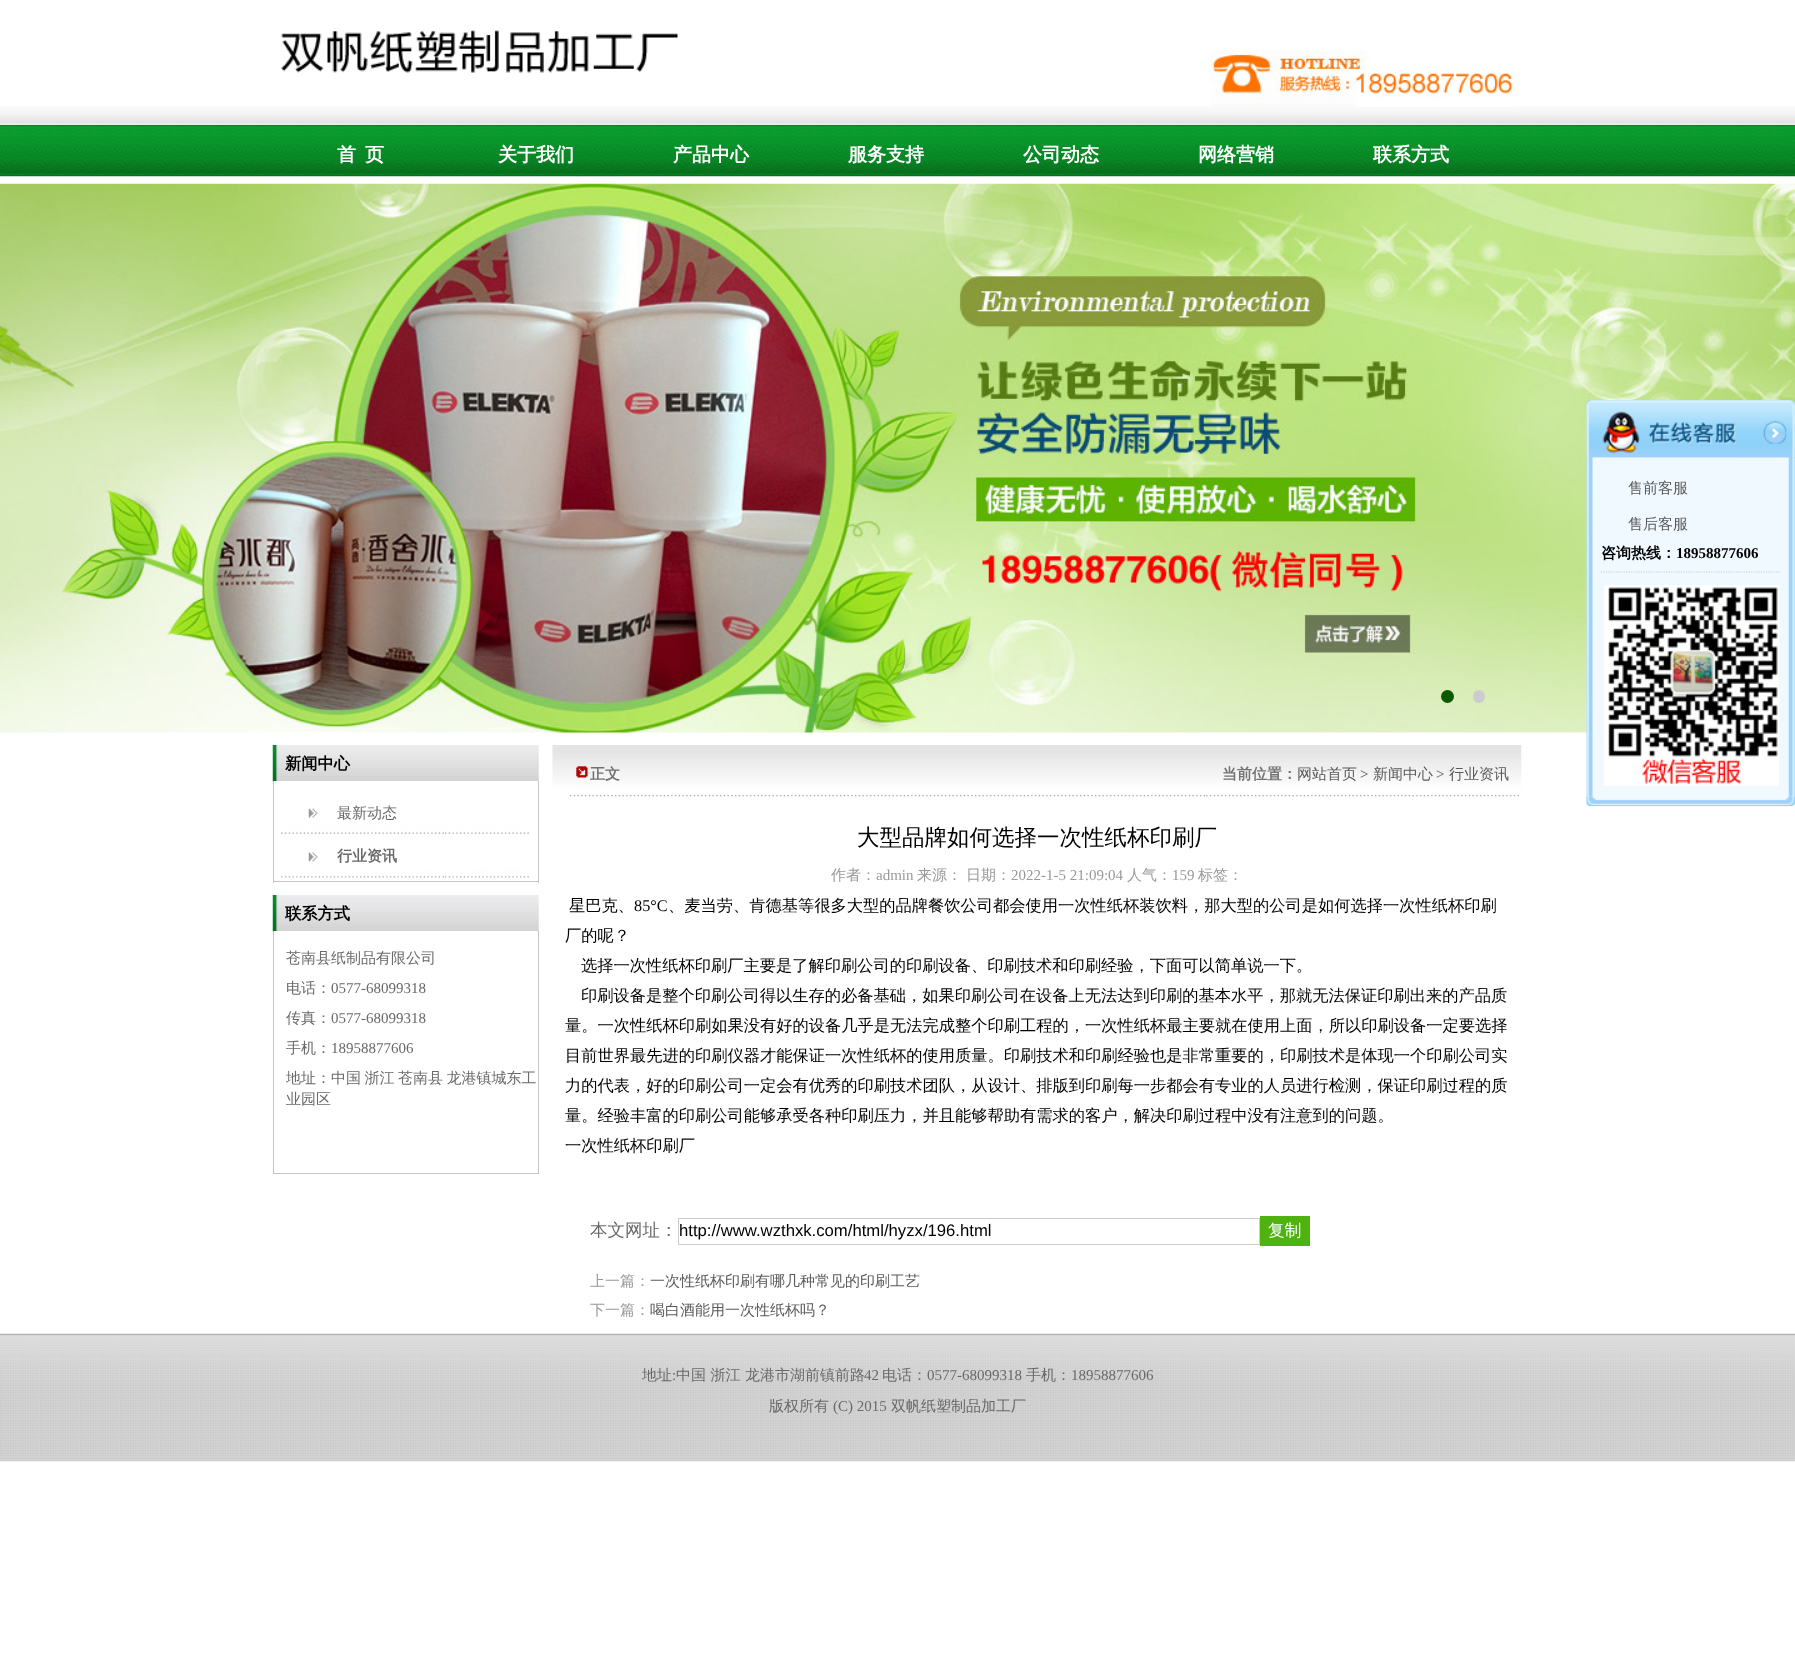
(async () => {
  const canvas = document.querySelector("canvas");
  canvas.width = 1795;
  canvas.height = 1653;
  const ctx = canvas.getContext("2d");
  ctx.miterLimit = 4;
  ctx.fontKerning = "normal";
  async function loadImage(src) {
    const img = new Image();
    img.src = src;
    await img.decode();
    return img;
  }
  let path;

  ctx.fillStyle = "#ffffff";
  ctx.fillRect(0, 0, 1795, 1653);
  ctx.drawImage(await loadImage("img/1.png"), 0, 106, 1795, 71);
  ctx.drawImage(await loadImage("img/2.png"), 281, 30, 397, 43);
  ctx.drawImage(await loadImage("img/3.png"), 1210, 50, 309, 57);
  ctx.drawImage(await loadImage("img/4.png"), 0, 183, 1795, 550);
  ctx.fillStyle = "#0b5a00";
  ctx.beginPath();
  ctx.arc(1447.5, 696.5, 6.5, 0, Math.PI * 2);
  ctx.fill();
  ctx.fillStyle = "#cccccc";
  ctx.beginPath();
  ctx.roundRect(1473, 690, 12, 13, 6);
  ctx.fill();
  ctx.drawImage(await loadImage("img/5.png"), 1586, 400, 209, 58);
  ctx.drawImage(await loadImage("img/6.png"), 1762, 421, 25, 23);
  ctx.drawImage(await loadImage("img/7.png"), 1586, 457, 209, 340);
  path = new Path2D("M1601 572H1780");
  ctx.strokeStyle = "#cccccc";
  ctx.lineWidth = 1.2;
  ctx.setLineDash([1.25, 1.25]);
  ctx.stroke(path);
  ctx.drawImage(await loadImage("img/8.png"), 1604, 585, 175, 201);
  ctx.drawImage(await loadImage("img/9.png"), 1586, 796, 209, 11);
  ctx.drawImage(await loadImage("img/10.png"), 272, 745, 267, 37);
  for (const [x, y, w, h, color] of [
    [274, 781, 264, 1, "#ffffff"],
    [538, 781, 1, 102, "#c5c5c5"],
    [273, 881, 266, 1, "#c5c5c5"],
    [273, 781, 1, 102, "#c5c5c5"],
  ]) {
    ctx.fillStyle = color;
    ctx.fillRect(x, y, w, h);
  }
  ctx.drawImage(await loadImage("img/11.png"), 281, 808, 248, 26);
  ctx.drawImage(await loadImage("img/12.png"), 281, 852, 248, 26);
  ctx.drawImage(await loadImage("img/10.png"), 272, 895, 267, 37);
  for (const [x, y, w, h, color] of [
    [274, 931, 264, 1, "#ffffff"],
    [538, 931, 1, 243, "#c5c5c5"],
    [273, 1173, 266, 1, "#c5c5c5"],
    [273, 931, 1, 243, "#c5c5c5"],
  ]) {
    ctx.fillStyle = color;
    ctx.fillRect(x, y, w, h);
  }
  ctx.drawImage(await loadImage("img/13.png"), 552, 745, 970, 52);
  ctx.lineWidth = 1;
  ctx.setLineDash([]);
  ctx.strokeRect(678.5, 1218.5, 581, 26);
  ctx.fillStyle = "#50b20e";
  ctx.fillRect(1260, 1216, 50, 30);
  ctx.drawImage(await loadImage("img/14.png"), 0, 1333, 1795, 129);
  ctx.font = "bold 19px WenQuanYi Zen Hei";
  ctx.fillStyle = "#ffffff";
  for (const [text, x, y] of [
    ["首", 337, 161],
    ["页", 365, 161],
    ["关于我们", 498, 161],
    ["产品中心", 673, 161],
    ["服务支持", 848, 161],
    ["公司动态", 1023, 161],
    ["网络营销", 1198, 161],
    ["联系方式", 1373, 161],
  ]) {
    ctx.fillText(text, x, y);
  }
  ctx.font = "500 15px WenQuanYi Zen Hei";
  ctx.fillStyle = "#5a5a5a";
  ctx.fillText("售前客服", 1628, 493);
  ctx.fillText("售后客服", 1628, 529);
  ctx.font = "bold 15px WenQuanYi Zen Hei";
  ctx.fillStyle = "#000000";
  ctx.fillText("咨询热线：", 1601, 558);
  ctx.font = "bold 15px Liberation Serif";
  ctx.fillText("18958877606", 1676, 558);
  ctx.font = "bold 16.25px WenQuanYi Zen Hei";
  ctx.fillText("新闻中心", 285, 769);
  ctx.font = "500 15px WenQuanYi Zen Hei";
  ctx.fillStyle = "#696969";
  ctx.fillText("最新动态", 337, 818);
  ctx.font = "bold 15px WenQuanYi Zen Hei";
  ctx.fillText("行业资讯", 337, 861);
  ctx.font = "bold 16.25px WenQuanYi Zen Hei";
  ctx.fillStyle = "#000000";
  ctx.fillText("联系方式", 285, 919);
  ctx.font = "500 15px WenQuanYi Zen Hei";
  ctx.fillStyle = "#696969";
  ctx.fillText("苍南县纸制品有限公司", 286, 963);
  ctx.fillText("电话：", 286, 993);
  ctx.font = "15px Liberation Serif";
  ctx.fillText("0577-68099318", 331, 993);
  ctx.font = "500 15px WenQuanYi Zen Hei";
  ctx.fillText("传真：", 286, 1023);
  ctx.font = "15px Liberation Serif";
  ctx.fillText("0577-68099318", 331, 1023);
  ctx.font = "500 15px WenQuanYi Zen Hei";
  ctx.fillText("手机：", 286, 1053);
  ctx.font = "15px Liberation Serif";
  ctx.fillText("18958877606", 331, 1053);
  ctx.wordSpacing = "-1px";
  ctx.font = "500 15px WenQuanYi Zen Hei";
  ctx.fillText("地址：中国 浙江 苍南县 龙港镇城东工", 286, 1083);
  ctx.wordSpacing = "0px";
  ctx.fillText("业园区", 286, 1104);
  ctx.font = "bold 15px WenQuanYi Zen Hei";
  ctx.fillStyle = "#717171";
  ctx.fillText("正文", 590, 779);
  ctx.fillText("当前位置：", 1222, 779);
  ctx.font = "500 15px WenQuanYi Zen Hei";
  ctx.fillStyle = "#5a5a5a";
  ctx.fillText("网站首页", 1297, 779);
  ctx.font = "bold 15px Liberation Serif";
  ctx.fillStyle = "#717171";
  ctx.fillText(">", 1360, 779);
  ctx.font = "500 15px WenQuanYi Zen Hei";
  ctx.fillStyle = "#5a5a5a";
  ctx.fillText("新闻中心", 1373, 779);
  ctx.font = "bold 15px Liberation Serif";
  ctx.fillStyle = "#717171";
  ctx.fillText(">", 1436, 779);
  ctx.font = "500 15px WenQuanYi Zen Hei";
  ctx.fillStyle = "#5a5a5a";
  ctx.fillText("行业资讯", 1449, 779);
  ctx.font = "500 22.5px WenQuanYi Zen Hei";
  ctx.fillStyle = "#000000";
  ctx.fillText("大型品牌如何选择一次性纸杯印刷厂", 857, 845);
  ctx.font = "500 15px WenQuanYi Zen Hei";
  ctx.fillStyle = "#999999";
  ctx.fillText("作者：", 831, 880);
  ctx.font = "15px Liberation Serif";
  ctx.fillText("admin", 876, 880);
  ctx.font = "500 15px WenQuanYi Zen Hei";
  ctx.fillText("来源：", 917, 880);
  ctx.fillText("日期：", 966, 880);
  ctx.font = "15px Liberation Serif";
  ctx.fillText("2022-1-5 21:09:04", 1011, 880);
  ctx.font = "500 15px WenQuanYi Zen Hei";
  ctx.fillText("人气：", 1127, 880);
  ctx.font = "15px Liberation Serif";
  ctx.fillText("159", 1172, 880);
  ctx.font = "500 15px WenQuanYi Zen Hei";
  ctx.fillText("标签：", 1198, 880);
  ctx.font = "500 16.25px WenQuanYi Zen Hei";
  ctx.fillStyle = "#000000";
  ctx.fillText("星巴克、", 569, 911);
  ctx.font = "16.25px Liberation Serif";
  ctx.fillText("85°C", 634, 911);
  ctx.font = "500 16.25px WenQuanYi Zen Hei";
  for (const [text, x, y] of [
    ["、麦当劳、肯德基等很多大型的品牌餐饮公司都会使用一次性纸杯装饮料，那大型的公司是如何选择一次性纸杯印刷", 668, 911],
    ["厂的呢？", 565, 941],
    ["选择一次性纸杯印刷厂主要是了解印刷公司的印刷设备、印刷技术和印刷经验，下面可以简单说一下。", 581, 971],
    ["印刷设备是整个印刷公司得以生存的必备基础，如果印刷公司在设备上无法达到印刷的基本水平，那就无法保证印刷出来的产品质", 581, 1001],
    ["量。一次性纸杯印刷如果没有好的设备几乎是无法完成整个印刷工程的，一次性纸杯最主要就在使用上面，所以印刷设备一定要选择", 565, 1031],
    ["目前世界最先进的印刷仪器才能保证一次性纸杯的使用质量。印刷技术和印刷经验也是非常重要的，印刷技术是体现一个印刷公司实", 565, 1061],
    ["力的代表，好的印刷公司一定会有优秀的印刷技术团队，从设计、排版到印刷每一步都会有专业的人员进行检测，保证印刷过程的质", 565, 1091],
    ["量。经验丰富的印刷公司能够承受各种印刷压力，并且能够帮助有需求的客户，解决印刷过程中没有注意到的问题。", 565, 1121],
    ["一次性纸杯印刷厂", 565, 1151],
  ]) {
    ctx.fillText(text, x, y);
  }
  ctx.font = "500 17.5px WenQuanYi Zen Hei";
  ctx.fillStyle = "#696969";
  ctx.fillText("本文网址：", 590, 1236);
  ctx.font = "16.7px Liberation Sans";
  ctx.fillStyle = "#000000";
  ctx.fillText("http://www.wzthxk.com/html/hyzx/196.html", 679, 1236);
  ctx.font = "500 16.7px WenQuanYi Zen Hei";
  ctx.fillStyle = "#ffffff";
  ctx.fillText("复制", 1268, 1236);
  ctx.font = "500 15px WenQuanYi Zen Hei";
  ctx.fillStyle = "#999999";
  ctx.fillText("上一篇：", 590, 1286);
  ctx.fillStyle = "#5a5a5a";
  ctx.fillText("一次性纸杯印刷有哪几种常见的印刷工艺", 650, 1286);
  ctx.fillStyle = "#999999";
  ctx.fillText("下一篇：", 590, 1315);
  ctx.fillStyle = "#5a5a5a";
  ctx.fillText("喝白酒能用一次性纸杯吗？", 650, 1315);
  ctx.fillStyle = "#696969";
  ctx.fillText("地址", 642, 1380);
  ctx.font = "15px Liberation Serif";
  ctx.fillText(":", 672, 1380);
  ctx.font = "500 15px WenQuanYi Zen Hei";
  ctx.fillText("中国 浙江 龙港市湖前镇前路", 676, 1380);
  ctx.font = "15px Liberation Serif";
  ctx.fillText("42", 864, 1380);
  ctx.font = "500 15px WenQuanYi Zen Hei";
  ctx.fillText("电话：", 882, 1380);
  ctx.font = "15px Liberation Serif";
  ctx.fillText("0577-68099318", 927, 1380);
  ctx.font = "500 15px WenQuanYi Zen Hei";
  ctx.fillText("手机：", 1026, 1380);
  ctx.font = "15px Liberation Serif";
  ctx.fillText("18958877606", 1071, 1380);
  ctx.font = "500 15px WenQuanYi Zen Hei";
  ctx.fillText("版权所有", 769, 1411);
  ctx.font = "15px Liberation Serif";
  ctx.fillText("(C) 2015", 833, 1411);
  ctx.font = "500 15px WenQuanYi Zen Hei";
  ctx.fillText("双帆纸塑制品加工厂", 891, 1411);
})();
